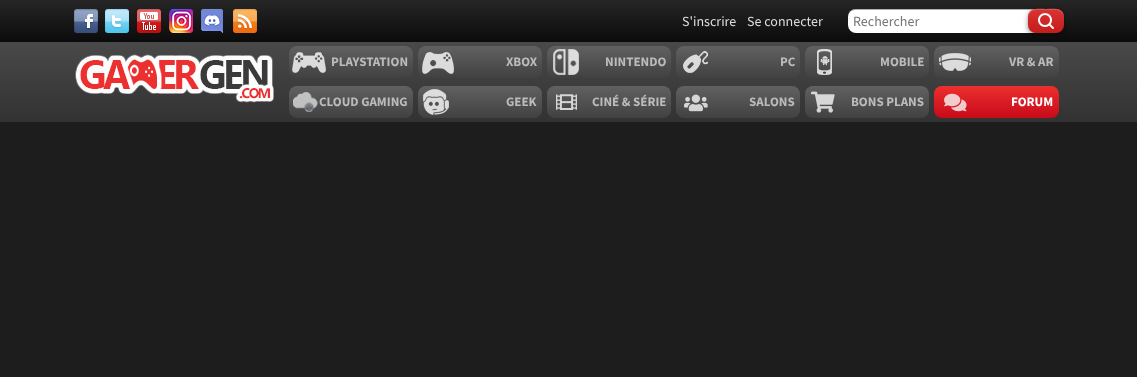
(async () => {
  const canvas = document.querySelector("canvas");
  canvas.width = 1137;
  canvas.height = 377;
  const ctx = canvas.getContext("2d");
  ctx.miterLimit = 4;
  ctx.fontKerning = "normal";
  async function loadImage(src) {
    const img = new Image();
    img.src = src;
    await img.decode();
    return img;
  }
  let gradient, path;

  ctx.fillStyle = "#1d1d1d";
  ctx.fillRect(0, 0, 1137, 377);
  gradient = ctx.createLinearGradient(569, 0, 569, 42);
  gradient.addColorStop(0, "#262626");
  gradient.addColorStop(1, "#0b0b0b");
  ctx.fillStyle = gradient;
  ctx.fillRect(0, 0, 1137, 42);
  ctx.drawImage(await loadImage("img/1.png"), 74, 9, 24, 24);
  ctx.drawImage(await loadImage("img/2.png"), 105, 9, 24, 24);
  ctx.drawImage(await loadImage("img/3.png"), 137, 9, 24, 24);
  ctx.drawImage(await loadImage("img/4.png"), 169, 9, 24, 24);
  ctx.drawImage(await loadImage("img/5.png"), 201, 9, 22, 24);
  ctx.drawImage(await loadImage("img/6.png"), 233, 9, 24, 24);
  ctx.fillStyle = "#ffffff";
  ctx.beginPath();
  ctx.roundRect(848, 9, 188, 24, [8, 0, 0, 8]);
  ctx.fill();
  ctx.fillStyle = "rgba(0, 0, 0, 0.3)";
  path = new Path2D("M855 10H1035V33H1036V9H856C853 9 851 11 849 13C851 11 853 10 855 10Z");
  ctx.fill(path);
  gradient = ctx.createLinearGradient(569, 42, 569, 122);
  gradient.addColorStop(0, "#494949");
  gradient.addColorStop(1, "#323232");
  ctx.fillStyle = gradient;
  ctx.fillRect(0, 42, 1137, 80);
  ctx.fillStyle = "rgba(0, 0, 0, 0.45)";
  ctx.filter = "blur(2.5px)";
  ctx.beginPath();
  ctx.roundRect(1028, 11, 36, 24, 8);
  ctx.fill();
  ctx.filter = "none";
  gradient = ctx.createLinearGradient(1046, 33, 1046, 9);
  gradient.addColorStop(0, "#c51b1b");
  gradient.addColorStop(1, "#d93434");
  ctx.fillStyle = gradient;
  ctx.beginPath();
  ctx.roundRect(1028, 9, 36, 24, 8);
  ctx.fill();
  ctx.fillStyle = "#df5555";
  path = new Path2D("M1036 10H1056C1060 10 1064 14 1064 18C1064 7 1053.5 9 1046 9C1038.5 9 1028 7 1028 18C1028 14 1032 10 1036 10Z");
  ctx.fill(path);
  ctx.drawImage(await loadImage("img/7.png"), 1038, 13, 16, 16);
  ctx.drawImage(await loadImage("img/8.png"), 75, 54, 199, 49);
  gradient = ctx.createLinearGradient(351, 78, 351, 46);
  gradient.addColorStop(0, "#414141");
  gradient.addColorStop(1, "#616161");
  ctx.fillStyle = gradient;
  ctx.beginPath();
  ctx.roundRect(289, 46, 124, 32, 8);
  ctx.fill();
  ctx.drawImage(await loadImage("img/9.png"), 292, 52, 34, 21);
  gradient = ctx.createLinearGradient(480, 78, 480, 46);
  gradient.addColorStop(0, "#414141");
  gradient.addColorStop(1, "#616161");
  ctx.fillStyle = gradient;
  ctx.beginPath();
  ctx.roundRect(418, 46, 124, 32, 8);
  ctx.fill();
  ctx.drawImage(await loadImage("img/10.png"), 422, 52, 32, 22);
  gradient = ctx.createLinearGradient(609, 78, 609, 46);
  gradient.addColorStop(0, "#414141");
  gradient.addColorStop(1, "#616161");
  ctx.fillStyle = gradient;
  ctx.beginPath();
  ctx.roundRect(547, 46, 124, 32, 8);
  ctx.fill();
  ctx.drawImage(await loadImage("img/11.png"), 553, 49, 26, 26);
  gradient = ctx.createLinearGradient(738, 78, 738, 46);
  gradient.addColorStop(0, "#414141");
  gradient.addColorStop(1, "#616161");
  ctx.fillStyle = gradient;
  ctx.beginPath();
  ctx.roundRect(676, 46, 124, 32, 8);
  ctx.fill();
  ctx.drawImage(await loadImage("img/12.png"), 683, 51, 25, 22);
  gradient = ctx.createLinearGradient(867, 78, 867, 46);
  gradient.addColorStop(0, "#414141");
  gradient.addColorStop(1, "#616161");
  ctx.fillStyle = gradient;
  ctx.beginPath();
  ctx.roundRect(805, 46, 124, 32, 8);
  ctx.fill();
  ctx.drawImage(await loadImage("img/13.png"), 817, 49, 15, 26);
  gradient = ctx.createLinearGradient(997, 78, 997, 46);
  gradient.addColorStop(0, "#414141");
  gradient.addColorStop(1, "#616161");
  ctx.fillStyle = gradient;
  ctx.beginPath();
  ctx.roundRect(934, 46, 125, 32, 8);
  ctx.fill();
  ctx.drawImage(await loadImage("img/14.png"), 939, 53, 32, 18);
  gradient = ctx.createLinearGradient(351, 118, 351, 86);
  gradient.addColorStop(0, "#414141");
  gradient.addColorStop(1, "#616161");
  ctx.fillStyle = gradient;
  ctx.beginPath();
  ctx.roundRect(289, 86, 124, 32, 8);
  ctx.fill();
  ctx.drawImage(await loadImage("img/15.png"), 293, 92, 25, 20);
  gradient = ctx.createLinearGradient(480, 118, 480, 86);
  gradient.addColorStop(0, "#414141");
  gradient.addColorStop(1, "#616161");
  ctx.fillStyle = gradient;
  ctx.beginPath();
  ctx.roundRect(418, 86, 124, 32, 8);
  ctx.fill();
  ctx.drawImage(await loadImage("img/16.png"), 423, 89, 26, 26);
  gradient = ctx.createLinearGradient(609, 118, 609, 86);
  gradient.addColorStop(0, "#414141");
  gradient.addColorStop(1, "#616161");
  ctx.fillStyle = gradient;
  ctx.beginPath();
  ctx.roundRect(547, 86, 124, 32, 8);
  ctx.fill();
  ctx.drawImage(await loadImage("img/17.png"), 556, 94, 21, 16);
  gradient = ctx.createLinearGradient(738, 118, 738, 86);
  gradient.addColorStop(0, "#414141");
  gradient.addColorStop(1, "#616161");
  ctx.fillStyle = gradient;
  ctx.beginPath();
  ctx.roundRect(676, 86, 124, 32, 8);
  ctx.fill();
  ctx.drawImage(await loadImage("img/18.png"), 684, 94, 24, 18);
  gradient = ctx.createLinearGradient(867, 118, 867, 86);
  gradient.addColorStop(0, "#414141");
  gradient.addColorStop(1, "#616161");
  ctx.fillStyle = gradient;
  ctx.beginPath();
  ctx.roundRect(805, 86, 124, 32, 8);
  ctx.fill();
  ctx.drawImage(await loadImage("img/19.png"), 811, 91, 24, 22);
  gradient = ctx.createLinearGradient(997, 118, 997, 86);
  gradient.addColorStop(0, "#c70a19");
  gradient.addColorStop(1, "#ec2f2f");
  ctx.fillStyle = gradient;
  ctx.beginPath();
  ctx.roundRect(934, 86, 125, 32, 8);
  ctx.fill();
  ctx.drawImage(await loadImage("img/20.png"), 944, 93, 23, 19);
  ctx.font = "14px Source Sans Pro";
  ctx.fillStyle = "#dddddd";
  ctx.fillText("S'inscrire", 682, 26);
  ctx.fillText("Se connecter", 747, 26);
  ctx.fillStyle = "#757575";
  ctx.fillText("Rechercher", 853, 26);
  ctx.font = "bold 13px Source Sans Pro";
  ctx.fillStyle = "#bbbbbb";
  for (const [text, x, y] of [
    ["PLAYSTATION", 331, 66],
    ["XBOX", 506, 66],
    ["NINTENDO", 605, 66],
    ["PC", 780, 66],
    ["MOBILE", 880, 66],
    ["VR & AR", 1009, 66],
    ["CLOUD GAMING", 319, 106],
    ["GEEK", 506, 106],
    ["CINÉ & SÉRIE", 592, 106],
    ["SALONS", 749, 106],
    ["BONS PLANS", 851, 106],
  ]) {
    ctx.fillText(text, x, y);
  }
  ctx.fillStyle = "#ffffff";
  ctx.fillText("FORUM", 1011, 106);
})();
